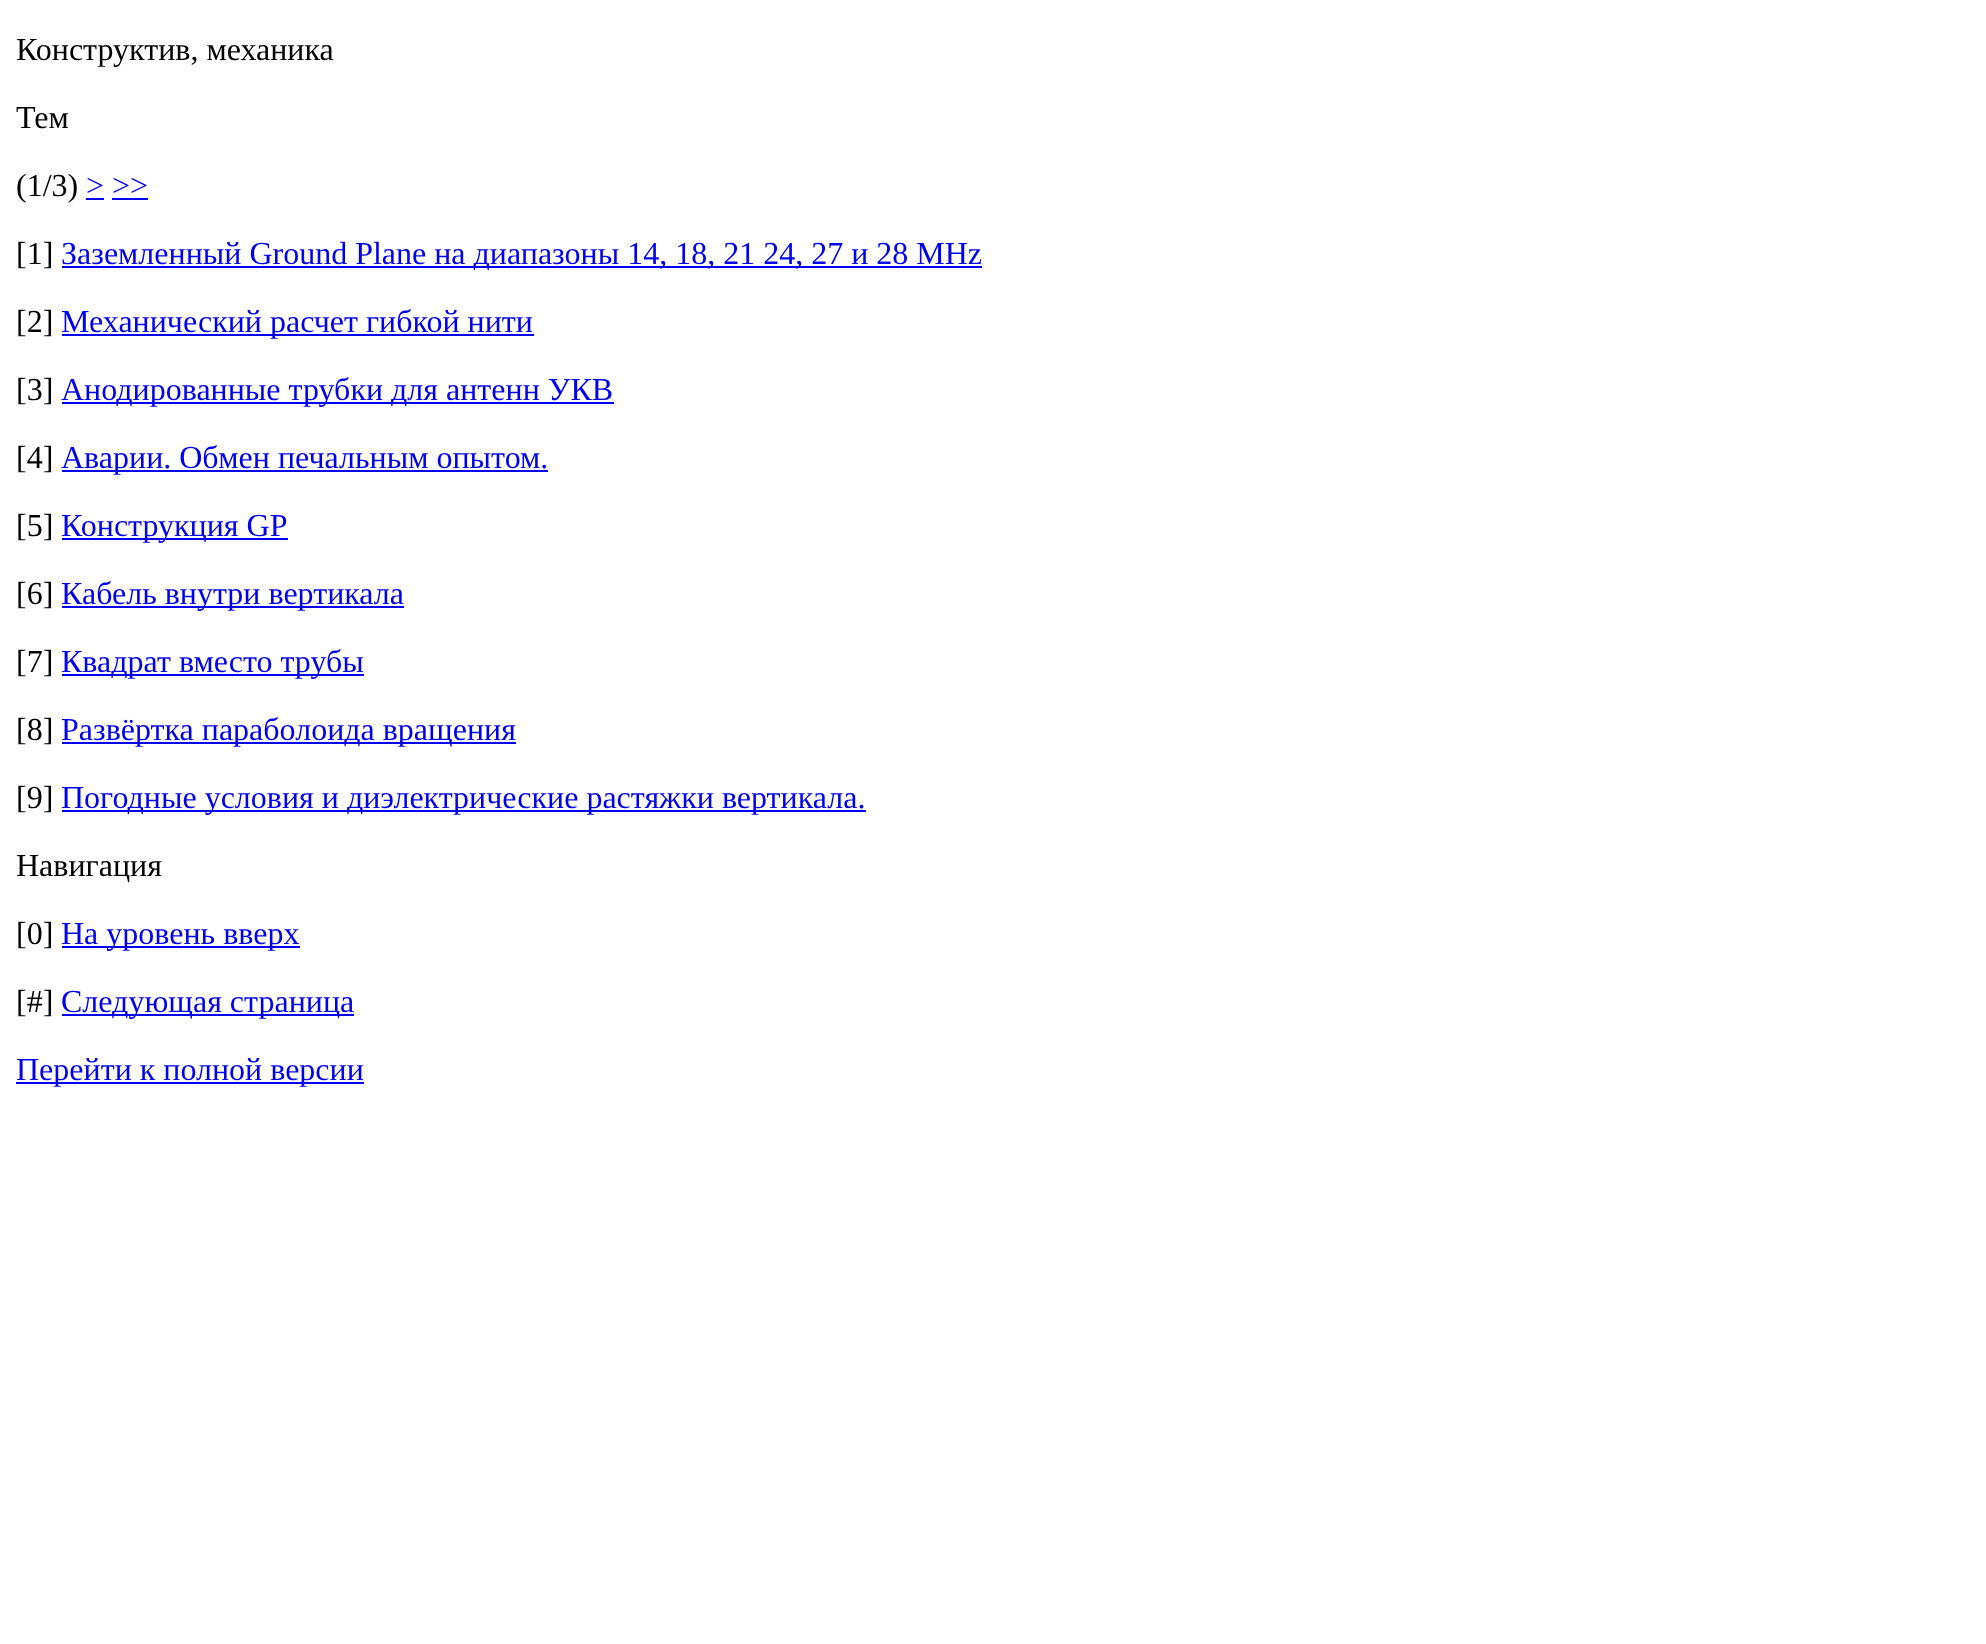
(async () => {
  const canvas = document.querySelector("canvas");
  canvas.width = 1986;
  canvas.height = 1644;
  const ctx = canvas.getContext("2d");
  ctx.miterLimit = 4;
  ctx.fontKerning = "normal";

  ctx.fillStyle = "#ffffff";
  ctx.fillRect(0, 0, 1986, 1644);
  for (const [x, y, w, h, color] of [
    [86, 198, 18, 2, "#0000ee"],
    [112, 198, 36, 2, "#0000ee"],
    [62, 266, 920, 2, "#0000ee"],
    [62, 334, 472, 2, "#0000ee"],
    [62, 402, 552, 2, "#0000ee"],
    [62, 470, 486, 2, "#0000ee"],
    [62, 538, 226, 2, "#0000ee"],
    [62, 606, 342, 2, "#0000ee"],
    [62, 674, 302, 2, "#0000ee"],
    [62, 742, 454, 2, "#0000ee"],
    [62, 810, 804, 2, "#0000ee"],
    [62, 946, 238, 2, "#0000ee"],
    [62, 1014, 292, 2, "#0000ee"],
    [16, 1082, 348, 2, "#0000ee"],
  ]) {
    ctx.fillStyle = color;
    ctx.fillRect(x, y, w, h);
  }
  ctx.font = "32px Liberation Serif";
  ctx.fillStyle = "#000000";
  for (const [text, x, y] of [
    ["Конструктив, механика", 16, 60],
    ["Тем", 16, 128],
    ["(1/3)", 16, 196],
  ]) {
    ctx.fillText(text, x, y);
  }
  ctx.fillStyle = "#0000ee";
  ctx.fillText("> >>", 86, 196);
  ctx.fillStyle = "#000000";
  ctx.fillText("[1]", 16, 264);
  ctx.fillStyle = "#0000ee";
  ctx.fillText("Заземленный Ground Plane на диапазоны 14, 18, 21 24, 27 и 28 МНz", 61, 264);
  ctx.fillStyle = "#000000";
  ctx.fillText("[2]", 16, 332);
  ctx.fillStyle = "#0000ee";
  ctx.fillText("Механический расчет гибкой нити", 61, 332);
  ctx.fillStyle = "#000000";
  ctx.fillText("[3]", 16, 400);
  ctx.fillStyle = "#0000ee";
  ctx.fillText("Анодированные трубки для антенн УКВ", 61, 400);
  ctx.fillStyle = "#000000";
  ctx.fillText("[4]", 16, 468);
  ctx.fillStyle = "#0000ee";
  ctx.fillText("Аварии. Обмен печальным опытом.", 61, 468);
  ctx.fillStyle = "#000000";
  ctx.fillText("[5]", 16, 536);
  ctx.fillStyle = "#0000ee";
  ctx.fillText("Конструкция GP", 61, 536);
  ctx.fillStyle = "#000000";
  ctx.fillText("[6]", 16, 604);
  ctx.fillStyle = "#0000ee";
  ctx.fillText("Кабель внутри вертикала", 61, 604);
  ctx.fillStyle = "#000000";
  ctx.fillText("[7]", 16, 672);
  ctx.fillStyle = "#0000ee";
  ctx.fillText("Квадрат вместо трубы", 61, 672);
  ctx.fillStyle = "#000000";
  ctx.fillText("[8]", 16, 740);
  ctx.fillStyle = "#0000ee";
  ctx.fillText("Развёртка параболоида вращения", 61, 740);
  ctx.fillStyle = "#000000";
  ctx.fillText("[9]", 16, 808);
  ctx.fillStyle = "#0000ee";
  ctx.fillText("Погодные условия и диэлектрические растяжки вертикала.", 61, 808);
  ctx.fillStyle = "#000000";
  ctx.fillText("Навигация", 16, 876);
  ctx.fillText("[0]", 16, 944);
  ctx.fillStyle = "#0000ee";
  ctx.fillText("На уровень вверх", 61, 944);
  ctx.fillStyle = "#000000";
  ctx.fillText("[#]", 16, 1012);
  ctx.fillStyle = "#0000ee";
  ctx.fillText("Следующая страница", 61, 1012);
  ctx.fillText("Перейти к полной версии", 16, 1080);
})();
